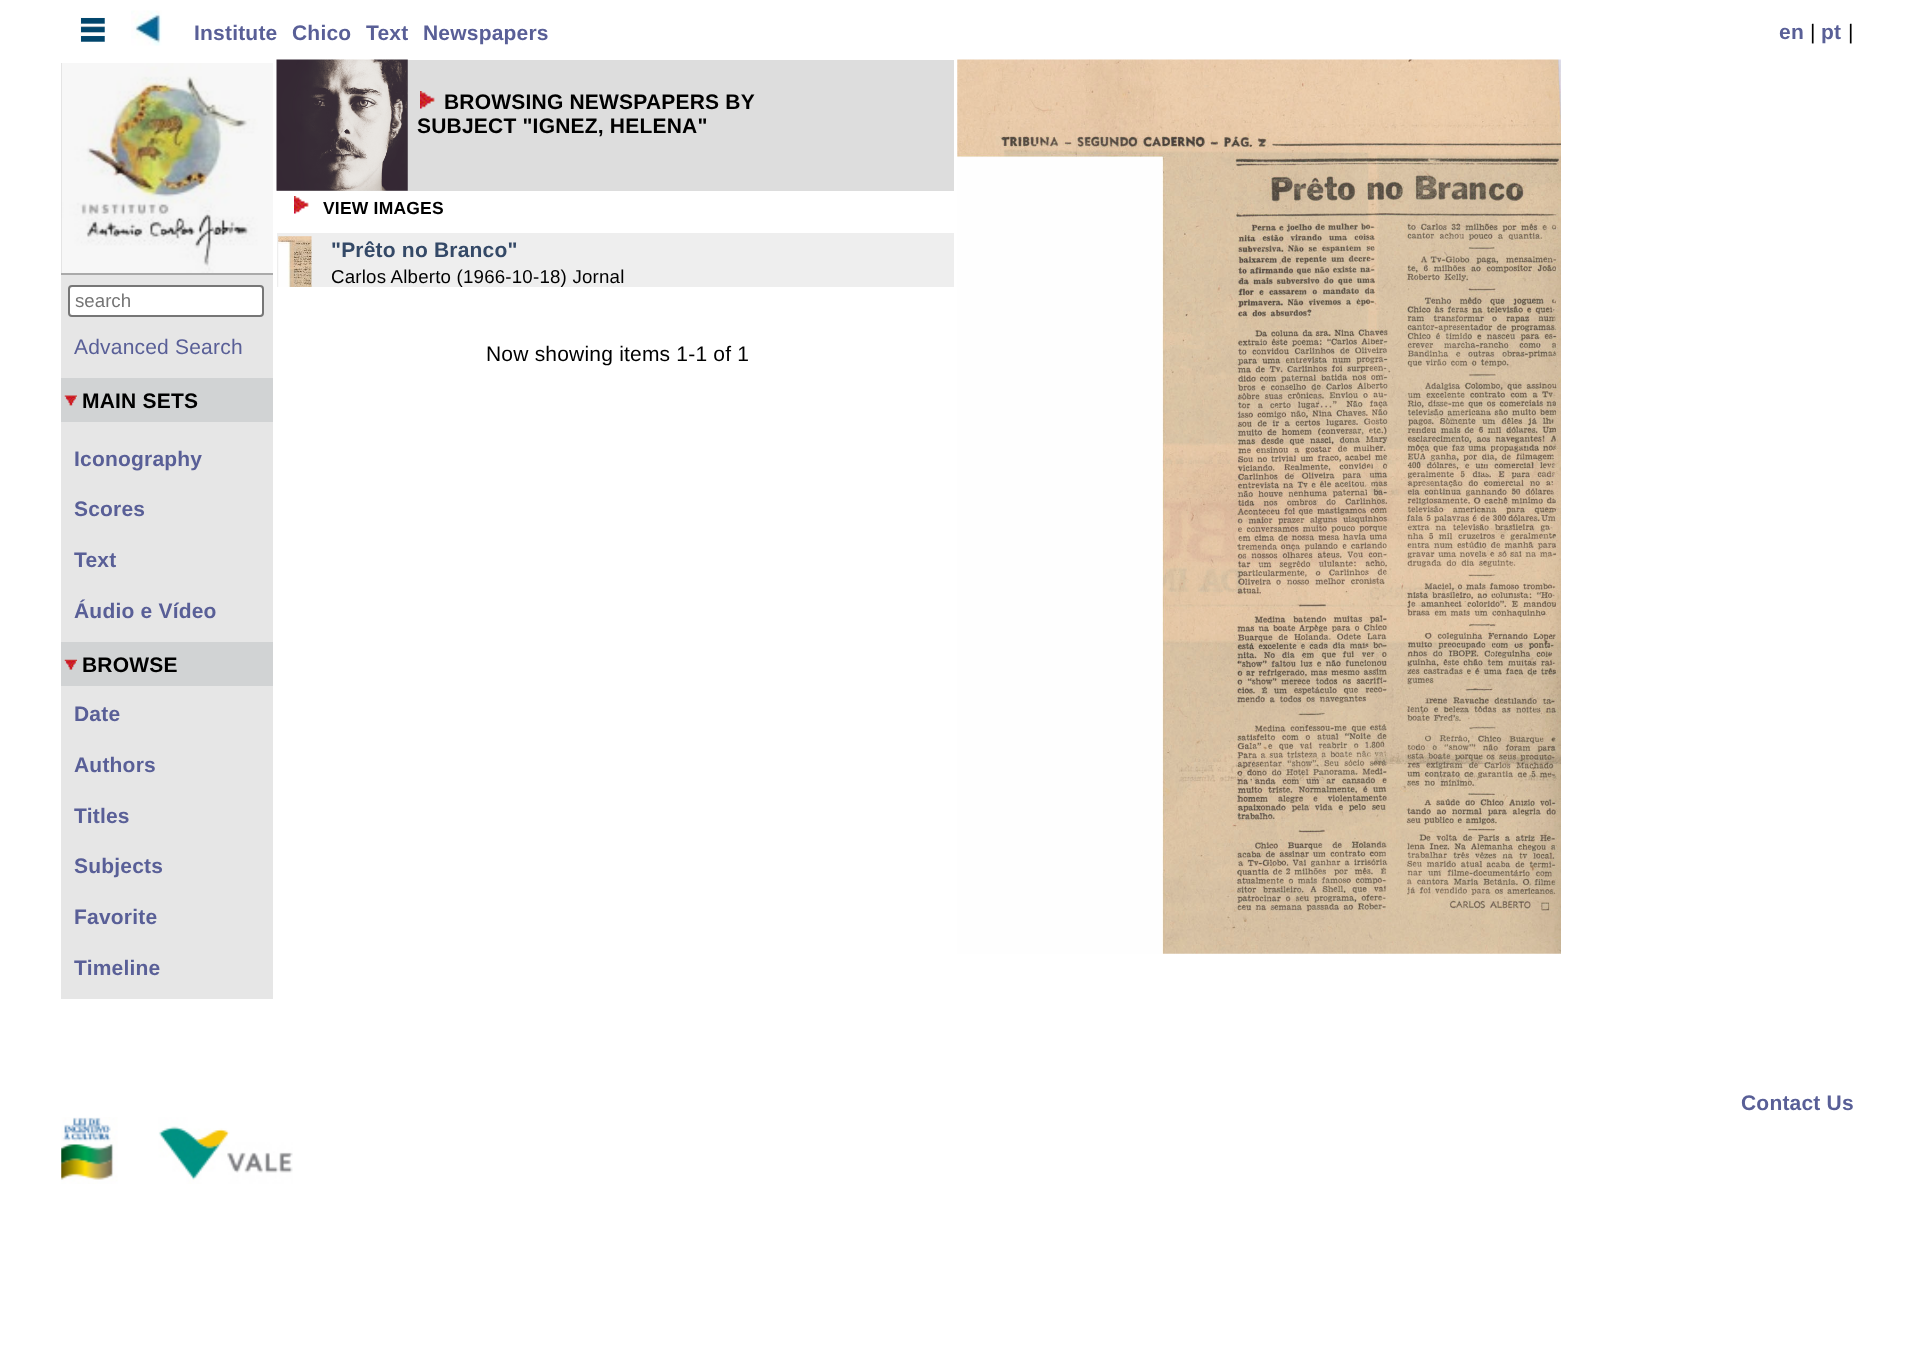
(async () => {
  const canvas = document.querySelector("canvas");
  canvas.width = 1913;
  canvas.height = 1346;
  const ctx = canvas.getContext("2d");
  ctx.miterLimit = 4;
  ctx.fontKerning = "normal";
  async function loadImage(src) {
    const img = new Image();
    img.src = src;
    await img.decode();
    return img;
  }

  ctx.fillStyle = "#ffffff";
  ctx.fillRect(0, 0, 1913, 1346);
  ctx.drawImage(await loadImage("img/1.png"), 80, 17, 25, 25);
  ctx.drawImage(await loadImage("img/2.png"), 131, 10, 31, 36);
  ctx.fillStyle = "#dddddd";
  ctx.fillRect(277, 60, 677, 131);
  ctx.drawImage(await loadImage("img/3.png"), 276, 59, 132, 132);
  ctx.drawImage(await loadImage("img/4.png"), 957, 59, 604, 895);
  ctx.drawImage(await loadImage("img/5.png"), 420, 91, 15, 18);
  ctx.drawImage(await loadImage("img/6.png"), 294, 196, 15, 18);
  ctx.fillStyle = "#eeeeee";
  ctx.fillRect(277, 233, 677, 54);
  ctx.drawImage(await loadImage("img/7.png"), 278, 236, 34, 51);
  ctx.fillStyle = "#e6e6e6";
  ctx.fillRect(61, 275, 212, 724);
  ctx.fillStyle = "#aaaaaa";
  ctx.fillRect(61, 63, 212, 212);
  ctx.drawImage(await loadImage("img/8.png"), 61, 63, 212, 210);
  ctx.fillStyle = "#ffffff";
  ctx.beginPath();
  ctx.roundRect(69, 286, 194, 30, 3);
  ctx.fill();
  ctx.strokeStyle = "#767676";
  ctx.lineWidth = 2;
  ctx.stroke();
  ctx.fillStyle = "#d1d3d4";
  ctx.fillRect(61, 378, 212, 44);
  ctx.drawImage(await loadImage("img/9.png"), 64, 395, 13, 11);
  ctx.fillRect(61, 642, 212, 44);
  ctx.drawImage(await loadImage("img/10.png"), 64, 659, 13, 11);
  ctx.drawImage(await loadImage("img/11.png"), 61, 1117, 232, 67);
  ctx.letterSpacing = "0.2px";
  ctx.font = "bold 21px Liberation Sans";
  ctx.fillStyle = "#595f97";
  for (const [text, x, y] of [
    ["Institute", 194, 40],
    ["Chico", 292, 40],
    ["Text", 366, 40],
    ["Newspapers", 423, 40],
    ["en", 1779, 39],
  ]) {
    ctx.fillText(text, x, y);
  }
  ctx.font = "21px Liberation Sans";
  ctx.fillStyle = "#000000";
  ctx.fillText("|", 1810, 39);
  ctx.font = "bold 21px Liberation Sans";
  ctx.fillStyle = "#595f97";
  ctx.fillText("pt", 1821, 39);
  ctx.font = "21px Liberation Sans";
  ctx.fillStyle = "#000000";
  ctx.fillText("|", 1848, 39);
  ctx.font = "bold 21px Liberation Sans";
  ctx.fillText("BROWSING NEWSPAPERS BY", 444, 109);
  ctx.fillText("SUBJECT \"IGNEZ, HELENA\"", 417, 133);
  ctx.font = "bold 17.5px Liberation Sans";
  ctx.fillText("VIEW IMAGES", 323, 214);
  ctx.font = "bold 21px Liberation Sans";
  ctx.fillStyle = "#344967";
  ctx.fillText("\"Prêto no Branco\"", 331, 257);
  ctx.font = "18.7px Liberation Sans";
  ctx.fillStyle = "#000000";
  ctx.fillText("Carlos Alberto (1966-10-18) Jornal", 331, 283);
  ctx.font = "21px Liberation Sans";
  ctx.fillText("Now showing items 1-1 of 1", 486, 361);
  ctx.letterSpacing = "0px";
  ctx.font = "18.7px Liberation Sans";
  ctx.fillStyle = "#757575";
  ctx.fillText("search", 75, 307);
  ctx.letterSpacing = "0.2px";
  ctx.font = "21px Liberation Sans";
  ctx.fillStyle = "#595f97";
  ctx.fillText("Advanced Search", 74, 354);
  ctx.font = "bold 21px Liberation Sans";
  ctx.fillStyle = "#000000";
  ctx.fillText("MAIN SETS", 82, 408);
  ctx.fillStyle = "#595f97";
  for (const [text, x, y] of [
    ["Iconography", 74, 466],
    ["Scores", 74, 516],
    ["Text", 74, 567],
    ["Áudio e Vídeo", 74, 618],
  ]) {
    ctx.fillText(text, x, y);
  }
  ctx.fillStyle = "#000000";
  ctx.fillText("BROWSE", 82, 672);
  ctx.fillStyle = "#595f97";
  for (const [text, x, y] of [
    ["Date", 74, 721],
    ["Authors", 74, 772],
    ["Titles", 74, 823],
    ["Subjects", 74, 873],
    ["Favorite", 74, 924],
    ["Timeline", 74, 975],
    ["Contact Us", 1741, 1110],
  ]) {
    ctx.fillText(text, x, y);
  }
})();
